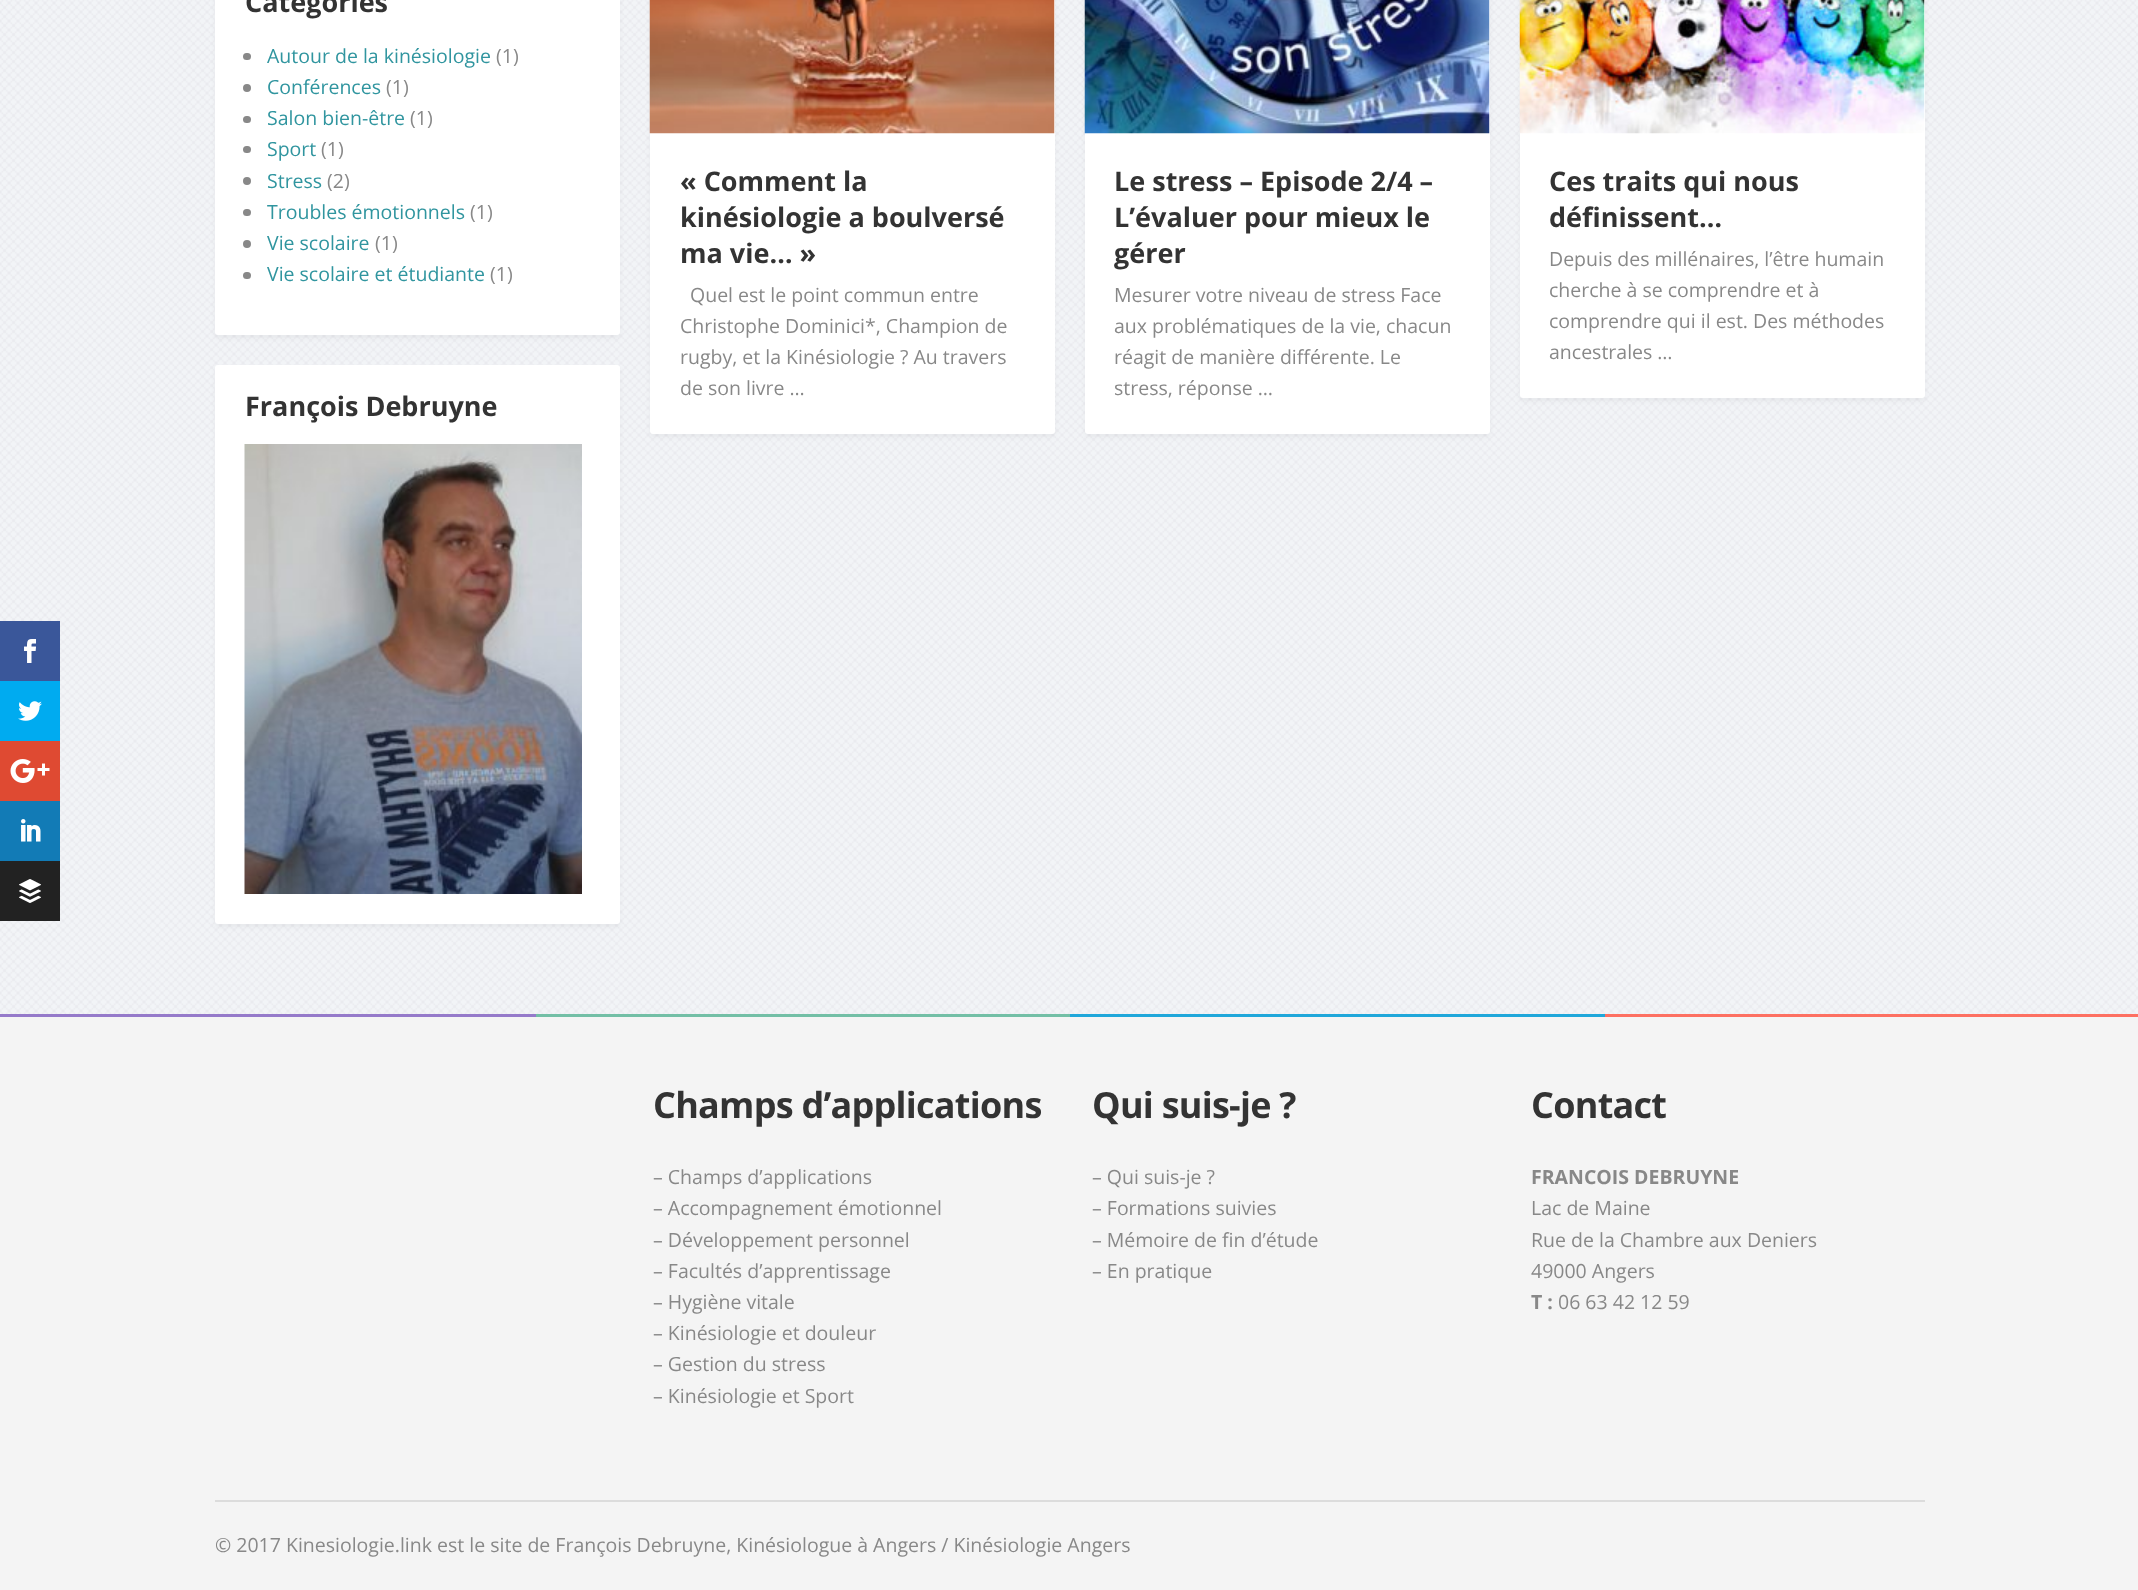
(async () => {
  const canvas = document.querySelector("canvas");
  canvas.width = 2138;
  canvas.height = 1590;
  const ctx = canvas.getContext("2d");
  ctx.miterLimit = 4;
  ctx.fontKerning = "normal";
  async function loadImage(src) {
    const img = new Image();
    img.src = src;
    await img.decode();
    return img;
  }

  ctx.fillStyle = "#f2f4f7";
  ctx.fillRect(0, 0, 2138, 1590);
  ctx.drawImage(await loadImage("img/1.png"), 0, 0, 2138, 1014);
  ctx.fillStyle = "rgba(31, 31, 31, 0.05)";
  ctx.filter = "blur(2px)";
  ctx.beginPath();
  ctx.roundRect(215, -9, 405, 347, 3);
  ctx.fill();
  ctx.filter = "none";
  ctx.fillStyle = "#ffffff";
  ctx.beginPath();
  ctx.roundRect(215, -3, 405, 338, 3);
  ctx.fill();
  ctx.fillStyle = "#888888";
  ctx.beginPath();
  ctx.roundRect(243, 53, 8, 7, 3.5);
  ctx.fill();
  ctx.beginPath();
  ctx.arc(247, 88, 4, 0, Math.PI * 2);
  ctx.fill();
  ctx.beginPath();
  ctx.roundRect(243, 116, 8, 7, 3.5);
  ctx.fill();
  ctx.beginPath();
  ctx.roundRect(243, 146, 8, 7, 3.5);
  ctx.fill();
  ctx.beginPath();
  ctx.arc(247, 181, 4, 0, Math.PI * 2);
  ctx.fill();
  ctx.beginPath();
  ctx.roundRect(243, 209, 8, 7, 3.5);
  ctx.fill();
  ctx.beginPath();
  ctx.arc(247, 244, 4, 0, Math.PI * 2);
  ctx.fill();
  ctx.beginPath();
  ctx.roundRect(243, 272, 8, 7, 3.5);
  ctx.fill();
  ctx.fillStyle = "rgba(31, 31, 31, 0.05)";
  ctx.filter = "blur(2px)";
  ctx.beginPath();
  ctx.roundRect(215, 368, 405, 559, 3);
  ctx.fill();
  ctx.filter = "none";
  ctx.fillStyle = "#ffffff";
  ctx.beginPath();
  ctx.roundRect(215, 365, 405, 559, 3);
  ctx.fill();
  ctx.drawImage(await loadImage("img/2.png"), 244, 444, 338, 450);
  ctx.fillStyle = "rgba(31, 31, 31, 0.05)";
  ctx.filter = "blur(2px)";
  ctx.beginPath();
  ctx.roundRect(650, -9, 405, 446, 3);
  ctx.fill();
  ctx.filter = "none";
  ctx.fillStyle = "#ffffff";
  ctx.beginPath();
  ctx.roundRect(650, -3, 405, 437, 3);
  ctx.fill();
  ctx.drawImage(await loadImage("img/3.png"), 649, 0, 406, 134);
  ctx.fillStyle = "rgba(31, 31, 31, 0.05)";
  ctx.filter = "blur(2px)";
  ctx.beginPath();
  ctx.roundRect(1085, -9, 405, 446, 3);
  ctx.fill();
  ctx.filter = "none";
  ctx.fillStyle = "#ffffff";
  ctx.beginPath();
  ctx.roundRect(1085, -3, 405, 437, 3);
  ctx.fill();
  ctx.drawImage(await loadImage("img/4.png"), 1084, 0, 406, 134);
  ctx.fillStyle = "rgba(31, 31, 31, 0.05)";
  ctx.filter = "blur(2px)";
  ctx.beginPath();
  ctx.roundRect(1520, -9, 405, 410, 3);
  ctx.fill();
  ctx.filter = "none";
  ctx.fillStyle = "#ffffff";
  ctx.beginPath();
  ctx.roundRect(1520, -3, 405, 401, 3);
  ctx.fill();
  ctx.drawImage(await loadImage("img/5.png"), 1519, 0, 406, 134);
  ctx.fillStyle = "#3a579a";
  ctx.fillRect(0, 621, 60, 60);
  ctx.drawImage(await loadImage("img/6.png"), 24, 639, 12, 24);
  ctx.fillStyle = "#00abf0";
  ctx.fillRect(0, 681, 60, 60);
  ctx.drawImage(await loadImage("img/7.png"), 18, 701, 24, 20);
  ctx.fillStyle = "#df4a32";
  ctx.fillRect(0, 741, 60, 60);
  ctx.drawImage(await loadImage("img/8.png"), 10, 759, 40, 24);
  ctx.fillStyle = "#127bb6";
  ctx.fillRect(0, 801, 60, 60);
  ctx.drawImage(await loadImage("img/9.png"), 21, 819, 20, 23);
  ctx.fillStyle = "#222222";
  ctx.fillRect(0, 861, 60, 60);
  ctx.drawImage(await loadImage("img/10.png"), 19, 879, 22, 24);
  for (const [x, y, w, h, color] of [
    [0, 1014, 536, 3, "#957aca"],
    [536, 1014, 534, 3, "#73bfa6"],
    [1070, 1014, 535, 3, "#1fa7da"],
    [1605, 1014, 533, 3, "#fd7062"],
    [0, 1017, 2138, 573, "#f4f4f4"],
    [215, 1500, 1710, 2, "#dcdcdc"],
  ]) {
    ctx.fillStyle = color;
    ctx.fillRect(x, y, w, h);
  }
  ctx.font = "bold 27px Open Sans";
  ctx.fillStyle = "#333333";
  ctx.fillText("Catégories", 245, 12);
  ctx.font = "19.5px Open Sans";
  ctx.fillStyle = "#30959f";
  ctx.fillText("Autour de la kinésiologie", 267, 63);
  ctx.fillStyle = "#888888";
  ctx.fillText("(1)", 496, 63);
  ctx.fillStyle = "#30959f";
  ctx.fillText("Conférences", 267, 94);
  ctx.fillStyle = "#888888";
  ctx.fillText("(1)", 386, 94);
  ctx.fillStyle = "#30959f";
  ctx.fillText("Salon bien-être", 267, 125);
  ctx.fillStyle = "#888888";
  ctx.fillText("(1)", 410, 125);
  ctx.fillStyle = "#30959f";
  ctx.fillText("Sport", 267, 156);
  ctx.fillStyle = "#888888";
  ctx.fillText("(1)", 321, 156);
  ctx.fillStyle = "#30959f";
  ctx.fillText("Stress", 267, 188);
  ctx.fillStyle = "#888888";
  ctx.fillText("(2)", 327, 188);
  ctx.fillStyle = "#30959f";
  ctx.fillText("Troubles émotionnels", 267, 219);
  ctx.fillStyle = "#888888";
  ctx.fillText("(1)", 470, 219);
  ctx.fillStyle = "#30959f";
  ctx.fillText("Vie scolaire", 267, 250);
  ctx.fillStyle = "#888888";
  ctx.fillText("(1)", 375, 250);
  ctx.fillStyle = "#30959f";
  ctx.fillText("Vie scolaire et étudiante", 267, 281);
  ctx.fillStyle = "#888888";
  ctx.fillText("(1)", 490, 281);
  ctx.font = "bold 27px Open Sans";
  ctx.fillStyle = "#333333";
  for (const [text, x, y] of [
    ["François Debruyne", 245, 416],
    ["« Comment la", 680, 191],
    ["kinésiologie a boulversé", 680, 227],
    ["ma vie… »", 680, 263],
  ]) {
    ctx.fillText(text, x, y);
  }
  ctx.font = "19.5px Open Sans";
  ctx.fillStyle = "#888888";
  for (const [text, x, y] of [
    ["Quel est le point commun entre", 690, 302],
    ["Christophe Dominici*, Champion de", 680, 333],
    ["rugby, et la Kinésiologie ? Au travers", 680, 364],
    ["de son livre …", 680, 395],
  ]) {
    ctx.fillText(text, x, y);
  }
  ctx.font = "bold 27px Open Sans";
  ctx.fillStyle = "#333333";
  for (const [text, x, y] of [
    ["Le stress – Episode 2/4 –", 1114, 191],
    ["L’évaluer pour mieux le", 1114, 227],
    ["gérer", 1114, 263],
  ]) {
    ctx.fillText(text, x, y);
  }
  ctx.font = "19.5px Open Sans";
  ctx.fillStyle = "#888888";
  for (const [text, x, y] of [
    ["Mesurer votre niveau de stress Face", 1114, 302],
    ["aux problématiques de la vie, chacun", 1114, 333],
    ["réagit de manière différente. Le", 1114, 364],
    ["stress, réponse …", 1114, 395],
  ]) {
    ctx.fillText(text, x, y);
  }
  ctx.font = "bold 27px Open Sans";
  ctx.fillStyle = "#333333";
  ctx.fillText("Ces traits qui nous", 1549, 191);
  ctx.fillText("définissent…", 1549, 227);
  ctx.font = "19.5px Open Sans";
  ctx.fillStyle = "#888888";
  for (const [text, x, y] of [
    ["Depuis des millénaires, l’être humain", 1549, 266],
    ["cherche à se comprendre et à", 1549, 297],
    ["comprendre qui il est. Des méthodes", 1549, 328],
    ["ancestrales …", 1549, 359],
  ]) {
    ctx.fillText(text, x, y);
  }
  ctx.letterSpacing = "-0.75px";
  ctx.font = "bold 36px Open Sans";
  ctx.fillStyle = "#333333";
  ctx.fillText("Champs d’applications", 653, 1118);
  ctx.letterSpacing = "0px";
  ctx.font = "19.5px Open Sans";
  ctx.fillStyle = "#888888";
  for (const [text, x, y] of [
    ["– Champs d’applications", 653, 1184],
    ["– Accompagnement émotionnel", 653, 1215],
    ["– Développement personnel", 653, 1247],
    ["– Facultés d’apprentissage", 653, 1278],
    ["– Hygiène vitale", 653, 1309],
    ["– Kinésiologie et douleur", 653, 1340],
    ["– Gestion du stress", 653, 1371],
    ["– Kinésiologie et Sport", 653, 1403],
  ]) {
    ctx.fillText(text, x, y);
  }
  ctx.letterSpacing = "-0.75px";
  ctx.font = "bold 36px Open Sans";
  ctx.fillStyle = "#333333";
  ctx.fillText("Qui suis-je ?", 1092, 1118);
  ctx.letterSpacing = "0px";
  ctx.font = "19.5px Open Sans";
  ctx.fillStyle = "#888888";
  for (const [text, x, y] of [
    ["– Qui suis-je ?", 1092, 1184],
    ["– Formations suivies", 1092, 1215],
    ["– Mémoire de fin d’étude", 1092, 1247],
    ["– En pratique", 1092, 1278],
  ]) {
    ctx.fillText(text, x, y);
  }
  ctx.letterSpacing = "-0.75px";
  ctx.font = "bold 36px Open Sans";
  ctx.fillStyle = "#333333";
  ctx.fillText("Contact", 1531, 1118);
  ctx.letterSpacing = "0px";
  ctx.font = "bold 19.5px Open Sans";
  ctx.fillStyle = "#888888";
  ctx.fillText("FRANCOIS DEBRUYNE", 1531, 1184);
  ctx.font = "19.5px Open Sans";
  for (const [text, x, y] of [
    ["Lac de Maine", 1531, 1215],
    ["Rue de la Chambre aux Deniers", 1531, 1247],
    ["49000 Angers", 1531, 1278],
  ]) {
    ctx.fillText(text, x, y);
  }
  ctx.font = "bold 19.5px Open Sans";
  ctx.fillText("T :", 1531, 1309);
  ctx.font = "19.5px Open Sans";
  ctx.fillText("06 63 42 12 59", 1558, 1309);
  ctx.fillText("© 2017 Kinesiologie.link est le site de François Debruyne, Kinésiologue à Angers / Kinésiologie Angers", 215, 1552);
})();
